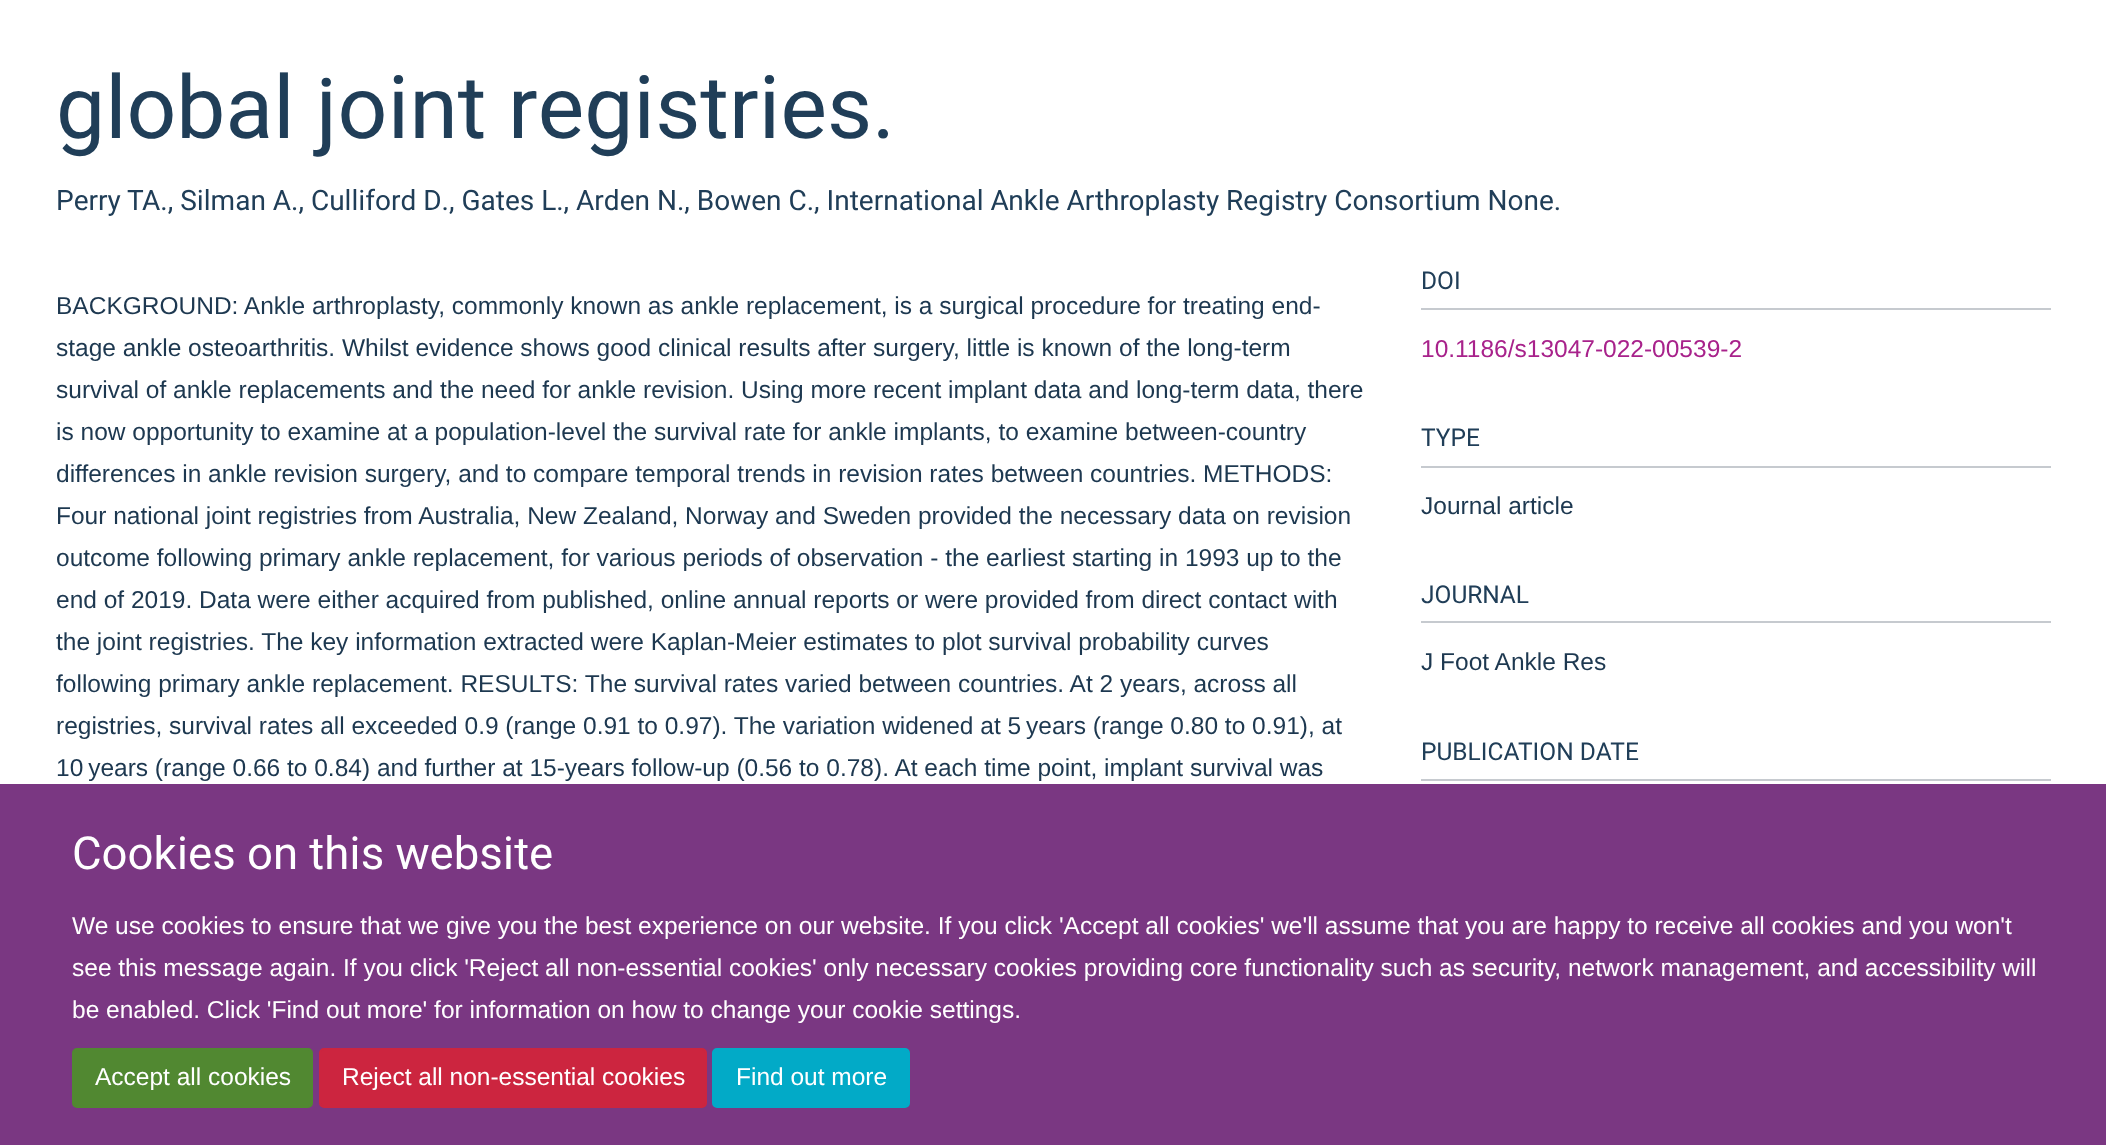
(async () => {
  const canvas = document.querySelector("canvas");
  canvas.width = 2106;
  canvas.height = 1145;
  const ctx = canvas.getContext("2d");
  ctx.miterLimit = 4;
  ctx.fontKerning = "normal";

  ctx.fillStyle = "#ffffff";
  ctx.fillRect(0, 0, 2106, 1145);
  for (const [x, y, w, h, color] of [
    [1421, 308, 630, 2, "#c6cacf"],
    [1421, 466, 630, 2, "#c6cacf"],
    [1421, 621, 630, 2, "#c6cacf"],
    [1421, 779, 630, 2, "#c6cacf"],
    [0, 784, 2106, 361, "#7a3782"],
  ]) {
    ctx.fillStyle = color;
    ctx.fillRect(x, y, w, h);
  }
  ctx.fillStyle = "#518831";
  ctx.beginPath();
  ctx.roundRect(73, 1049, 239, 58, 4);
  ctx.fill();
  ctx.strokeStyle = "#518831";
  ctx.lineWidth = 2;
  ctx.stroke();
  ctx.fillStyle = "#cc253f";
  ctx.beginPath();
  ctx.roundRect(320, 1049, 386, 58, 4);
  ctx.fill();
  ctx.strokeStyle = "#cc253f";
  ctx.stroke();
  ctx.fillStyle = "#02aac7";
  ctx.beginPath();
  ctx.roundRect(713, 1049, 196, 58, 4);
  ctx.fill();
  ctx.strokeStyle = "#02aac7";
  ctx.stroke();
  ctx.font = "87.5px Heebo";
  ctx.fillStyle = "#203e58";
  ctx.fillText("global joint registries.", 56, 138);
  ctx.font = "28px Heebo";
  ctx.fillText("Perry TA., Silman A., Culliford D., Gates L., Arden N., Bowen C., International Ankle Arthroplasty Registry Consortium None.", 56, 210);
  ctx.font = "24.5px Liberation Sans";
  ctx.fillStyle = "#1d3850";
  for (const [text, x, y] of [
    ["BACKGROUND: Ankle arthroplasty, commonly known as ankle replacement, is a surgical procedure for treating end-", 56, 314],
    ["stage ankle osteoarthritis. Whilst evidence shows good clinical results after surgery, little is known of the long-term", 56, 356],
    ["survival of ankle replacements and the need for ankle revision. Using more recent implant data and long-term data, there", 56, 398],
    ["is now opportunity to examine at a population-level the survival rate for ankle implants, to examine between-country", 56, 440],
    ["differences in ankle revision surgery, and to compare temporal trends in revision rates between countries. METHODS:", 56, 482],
    ["Four national joint registries from Australia, New Zealand, Norway and Sweden provided the necessary data on revision", 56, 524],
    ["outcome following primary ankle replacement, for various periods of observation - the earliest starting in 1993 up to the", 56, 566],
    ["end of 2019. Data were either acquired from published, online annual reports or were provided from direct contact with", 56, 608],
    ["the joint registries. The key information extracted were Kaplan-Meier estimates to plot survival probability curves", 56, 650],
    ["following primary ankle replacement. RESULTS: The survival rates varied between countries. At 2 years, across all", 56, 692],
    ["registries, survival rates all exceeded 0.9 (range 0.91 to 0.97). The variation widened at 5 years (range 0.80 to 0.91), at", 56, 734],
    ["10 years (range 0.66 to 0.84) and further at 15-years follow-up (0.56 to 0.78). At each time point, implant survival was", 56, 776],
  ]) {
    ctx.fillText(text, x, y);
  }
  ctx.font = "24.5px Heebo";
  ctx.fillStyle = "#203e58";
  ctx.fillText("DOI", 1421, 289);
  ctx.font = "24.5px Liberation Sans";
  ctx.fillStyle = "#a8228b";
  ctx.fillText("10.1186/s13047-022-00539-2", 1421, 357);
  ctx.font = "24.5px Heebo";
  ctx.fillStyle = "#203e58";
  ctx.fillText("TYPE", 1421, 446);
  ctx.font = "24.5px Liberation Sans";
  ctx.fillStyle = "#1d3850";
  ctx.fillText("Journal article", 1421, 514);
  ctx.font = "24.5px Heebo";
  ctx.fillStyle = "#203e58";
  ctx.fillText("JOURNAL", 1421, 603);
  ctx.font = "24.5px Liberation Sans";
  ctx.fillStyle = "#1d3850";
  ctx.fillText("J Foot Ankle Res", 1421, 670);
  ctx.font = "24.5px Heebo";
  ctx.fillStyle = "#203e58";
  ctx.fillText("PUBLICATION DATE", 1421, 760);
  ctx.font = "45.5px Heebo";
  ctx.fillStyle = "#ffffff";
  ctx.fillText("Cookies on this website", 72, 869);
  ctx.font = "24.5px Liberation Sans";
  for (const [text, x, y] of [
    ["We use cookies to ensure that we give you the best experience on our website. If you click 'Accept all cookies' we'll assume that you are happy to receive all cookies and you won't", 72, 934],
    ["see this message again. If you click 'Reject all non-essential cookies' only necessary cookies providing core functionality such as security, network management, and accessibility will", 72, 976],
    ["be enabled. Click 'Find out more' for information on how to change your cookie settings.", 72, 1018],
    ["Accept all cookies", 95, 1085],
    ["Reject all non-essential cookies", 342, 1085],
    ["Find out more", 736, 1085],
  ]) {
    ctx.fillText(text, x, y);
  }
})();
